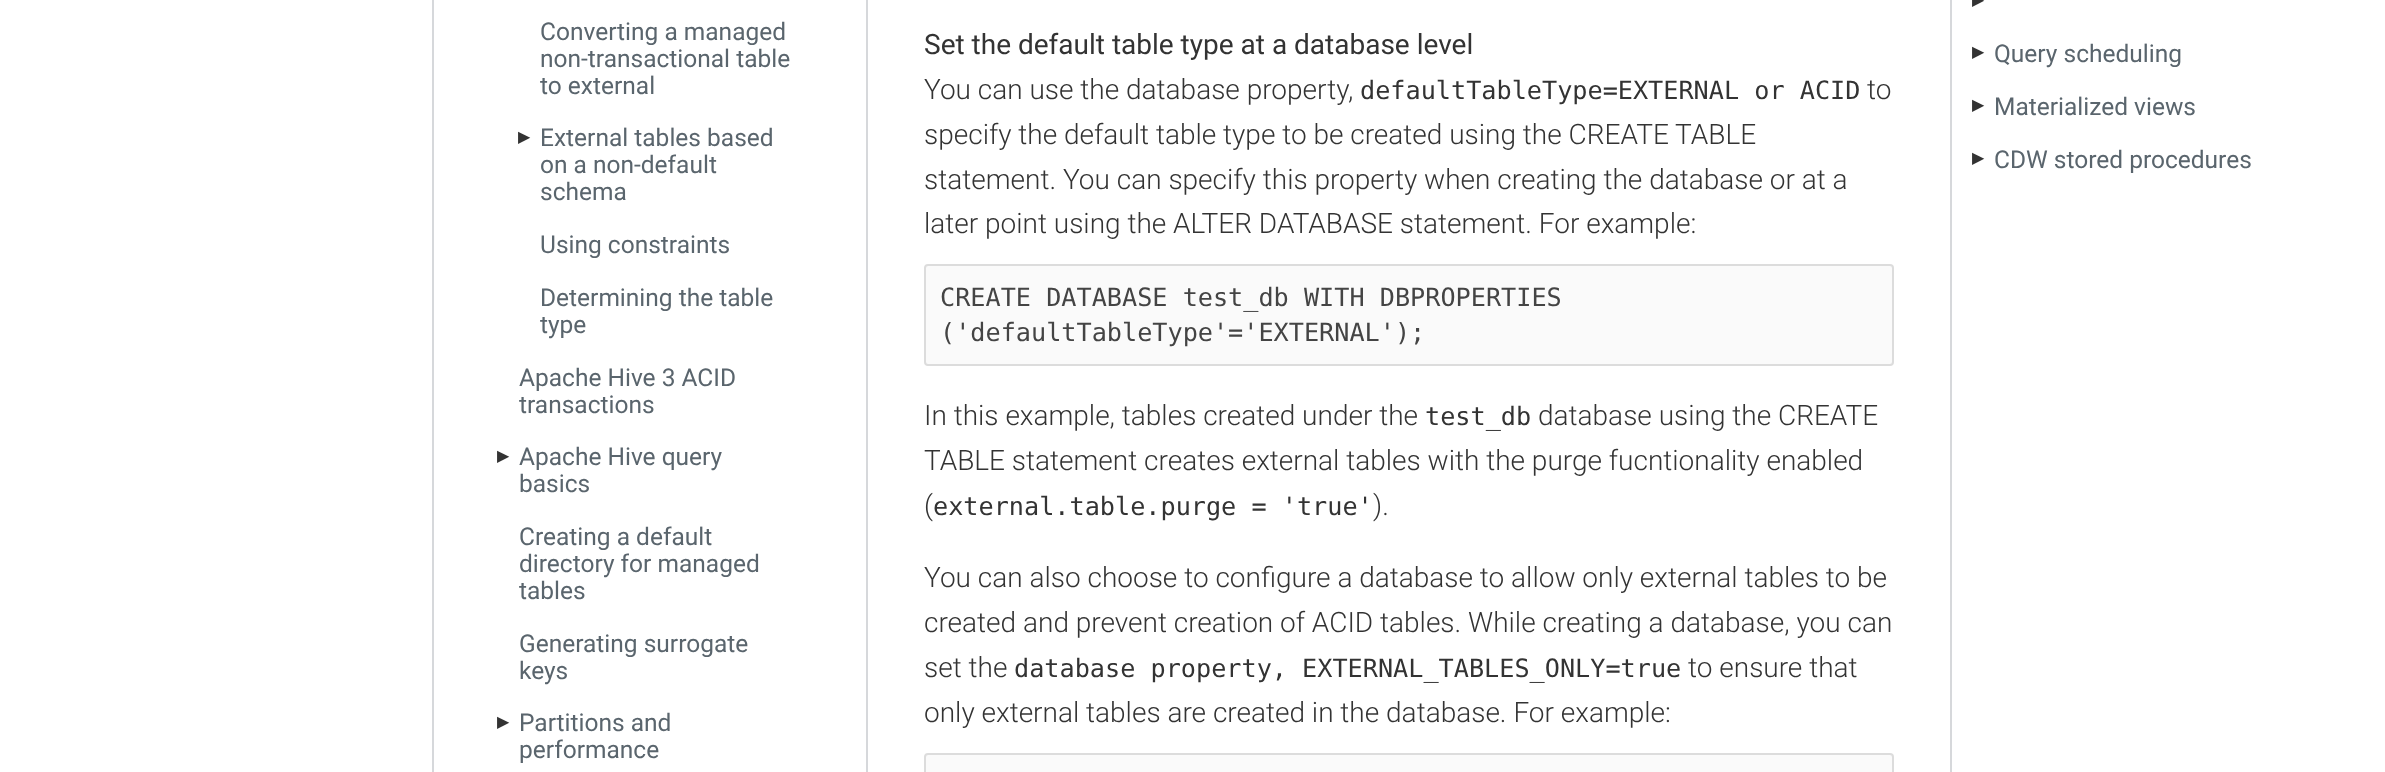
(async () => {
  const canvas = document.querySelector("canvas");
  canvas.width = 2385;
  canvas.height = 772;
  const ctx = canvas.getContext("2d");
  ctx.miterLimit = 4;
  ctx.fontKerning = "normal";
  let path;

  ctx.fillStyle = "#ffffff";
  ctx.fillRect(0, 0, 2385, 772);
  ctx.fillStyle = "#d6d8db";
  ctx.fillRect(432, 0, 2, 772);
  ctx.save();
  ctx.beginPath();
  ctx.rect(434, 0, 434, 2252);
  ctx.clip();
  path = new Path2D("M261-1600H1041V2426H261ZM432-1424H866V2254H432Z");
  ctx.fill(path, "evenodd");
  ctx.restore();
  ctx.fillStyle = "#fafafa";
  ctx.beginPath();
  ctx.roundRect(925, 265, 968, 100, 3);
  ctx.fill();
  ctx.strokeStyle = "#dcdcdc";
  ctx.lineWidth = 2;
  ctx.stroke();
  ctx.beginPath();
  ctx.roundRect(925, 754, 968, 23, 3);
  ctx.fill();
  ctx.stroke();
  ctx.fillStyle = "#d6d8db";
  ctx.fillRect(1950, 0, 2, 772);
  ctx.font = "24.5px Roboto";
  ctx.fillStyle = "#5a656d";
  for (const [text, x, y] of [
    ["Converting a managed", 540, 40],
    ["non-transactional table", 540, 67],
    ["to external", 540, 94],
  ]) {
    ctx.fillText(text, x, y);
  }
  ctx.font = "16px DejaVu Sans";
  ctx.fillStyle = "#333333";
  ctx.fillText("▶︎", 518, 142);
  ctx.font = "24.5px Roboto";
  ctx.fillStyle = "#5a656d";
  for (const [text, x, y] of [
    ["External tables based", 540, 146],
    ["on a non-default", 540, 173],
    ["schema", 540, 200],
    ["Using constraints", 540, 253],
    ["Determining the table", 540, 306],
    ["type", 540, 333],
    ["Apache Hive 3 ACID", 519, 386],
    ["transactions", 519, 413],
  ]) {
    ctx.fillText(text, x, y);
  }
  ctx.font = "16px DejaVu Sans";
  ctx.fillStyle = "#333333";
  ctx.fillText("▶︎", 497, 461);
  ctx.font = "24.5px Roboto";
  ctx.fillStyle = "#5a656d";
  for (const [text, x, y] of [
    ["Apache Hive query", 519, 465],
    ["basics", 519, 492],
    ["Creating a default", 519, 545],
    ["directory for managed", 519, 572],
    ["tables", 519, 599],
    ["Generating surrogate", 519, 652],
    ["keys", 519, 679],
  ]) {
    ctx.fillText(text, x, y);
  }
  ctx.font = "16px DejaVu Sans";
  ctx.fillStyle = "#333333";
  ctx.fillText("▶︎", 497, 727);
  ctx.font = "24.5px Roboto";
  ctx.fillStyle = "#5a656d";
  ctx.fillText("Partitions and", 519, 731);
  ctx.fillText("performance", 519, 758);
  ctx.font = "28px Roboto";
  ctx.fillStyle = "#333333";
  ctx.fillText("Set the default table type at a database level", 924, 54);
  ctx.font = "300 28px Roboto";
  ctx.fillText("You can use the database property,", 924, 99);
  ctx.font = "25.2px DejaVu Sans Mono";
  ctx.fillText("defaultTableType=EXTERNAL or ACID", 1360, 99);
  ctx.font = "300 28px Roboto";
  for (const [text, x, y] of [
    ["to", 1867, 99],
    ["specify the default table type to be created using the CREATE TABLE", 924, 144],
    ["statement. You can specify this property when creating the database or at a", 924, 189],
    ["later point using the ALTER DATABASE statement. For example:", 924, 233],
  ]) {
    ctx.fillText(text, x, y);
  }
  ctx.font = "25.2px DejaVu Sans Mono";
  ctx.fillStyle = "#444444";
  ctx.fillText("CREATE DATABASE test_db WITH DBPROPERTIES", 940, 306);
  ctx.fillText("('defaultTableType'='EXTERNAL');", 940, 341);
  ctx.font = "300 28px Roboto";
  ctx.fillStyle = "#333333";
  ctx.fillText("In this example, tables created under the", 924, 425);
  ctx.font = "25.2px DejaVu Sans Mono";
  ctx.fillText("test_db", 1425, 425);
  ctx.font = "300 28px Roboto";
  for (const [text, x, y] of [
    ["database using the CREATE", 1538, 425],
    ["TABLE statement creates external tables with the purge fucntionality enabled", 924, 470],
    ["(", 924, 515],
  ]) {
    ctx.fillText(text, x, y);
  }
  ctx.font = "25.2px DejaVu Sans Mono";
  ctx.fillText("external.table.purge = 'true'", 933, 515);
  ctx.font = "300 28px Roboto";
  for (const [text, x, y] of [
    [").", 1373, 515],
    ["You can also choose to configure a database to allow only external tables to be", 924, 587],
    ["created and prevent creation of ACID tables. While creating a database, you can", 924, 632],
    ["set the", 924, 677],
  ]) {
    ctx.fillText(text, x, y);
  }
  ctx.font = "25.2px DejaVu Sans Mono";
  ctx.fillText("database property, EXTERNAL_TABLES_ONLY=true", 1014, 677);
  ctx.font = "300 28px Roboto";
  ctx.fillText("to ensure that", 1688, 677);
  ctx.fillText("only external tables are created in the database. For example:", 924, 722);
  ctx.font = "16px DejaVu Sans";
  ctx.fillText("▶︎", 1972, 5);
  ctx.fillText("▶︎", 1972, 57);
  ctx.font = "24.5px Roboto";
  ctx.fillStyle = "#5a656d";
  ctx.fillText("Query scheduling", 1994, 62);
  ctx.font = "16px DejaVu Sans";
  ctx.fillStyle = "#333333";
  ctx.fillText("▶︎", 1972, 110);
  ctx.font = "24.5px Roboto";
  ctx.fillStyle = "#5a656d";
  ctx.fillText("Materialized views", 1994, 115);
  ctx.font = "16px DejaVu Sans";
  ctx.fillStyle = "#333333";
  ctx.fillText("▶︎", 1972, 163);
  ctx.font = "24.5px Roboto";
  ctx.fillStyle = "#5a656d";
  ctx.fillText("CDW stored procedures", 1994, 168);
})();
